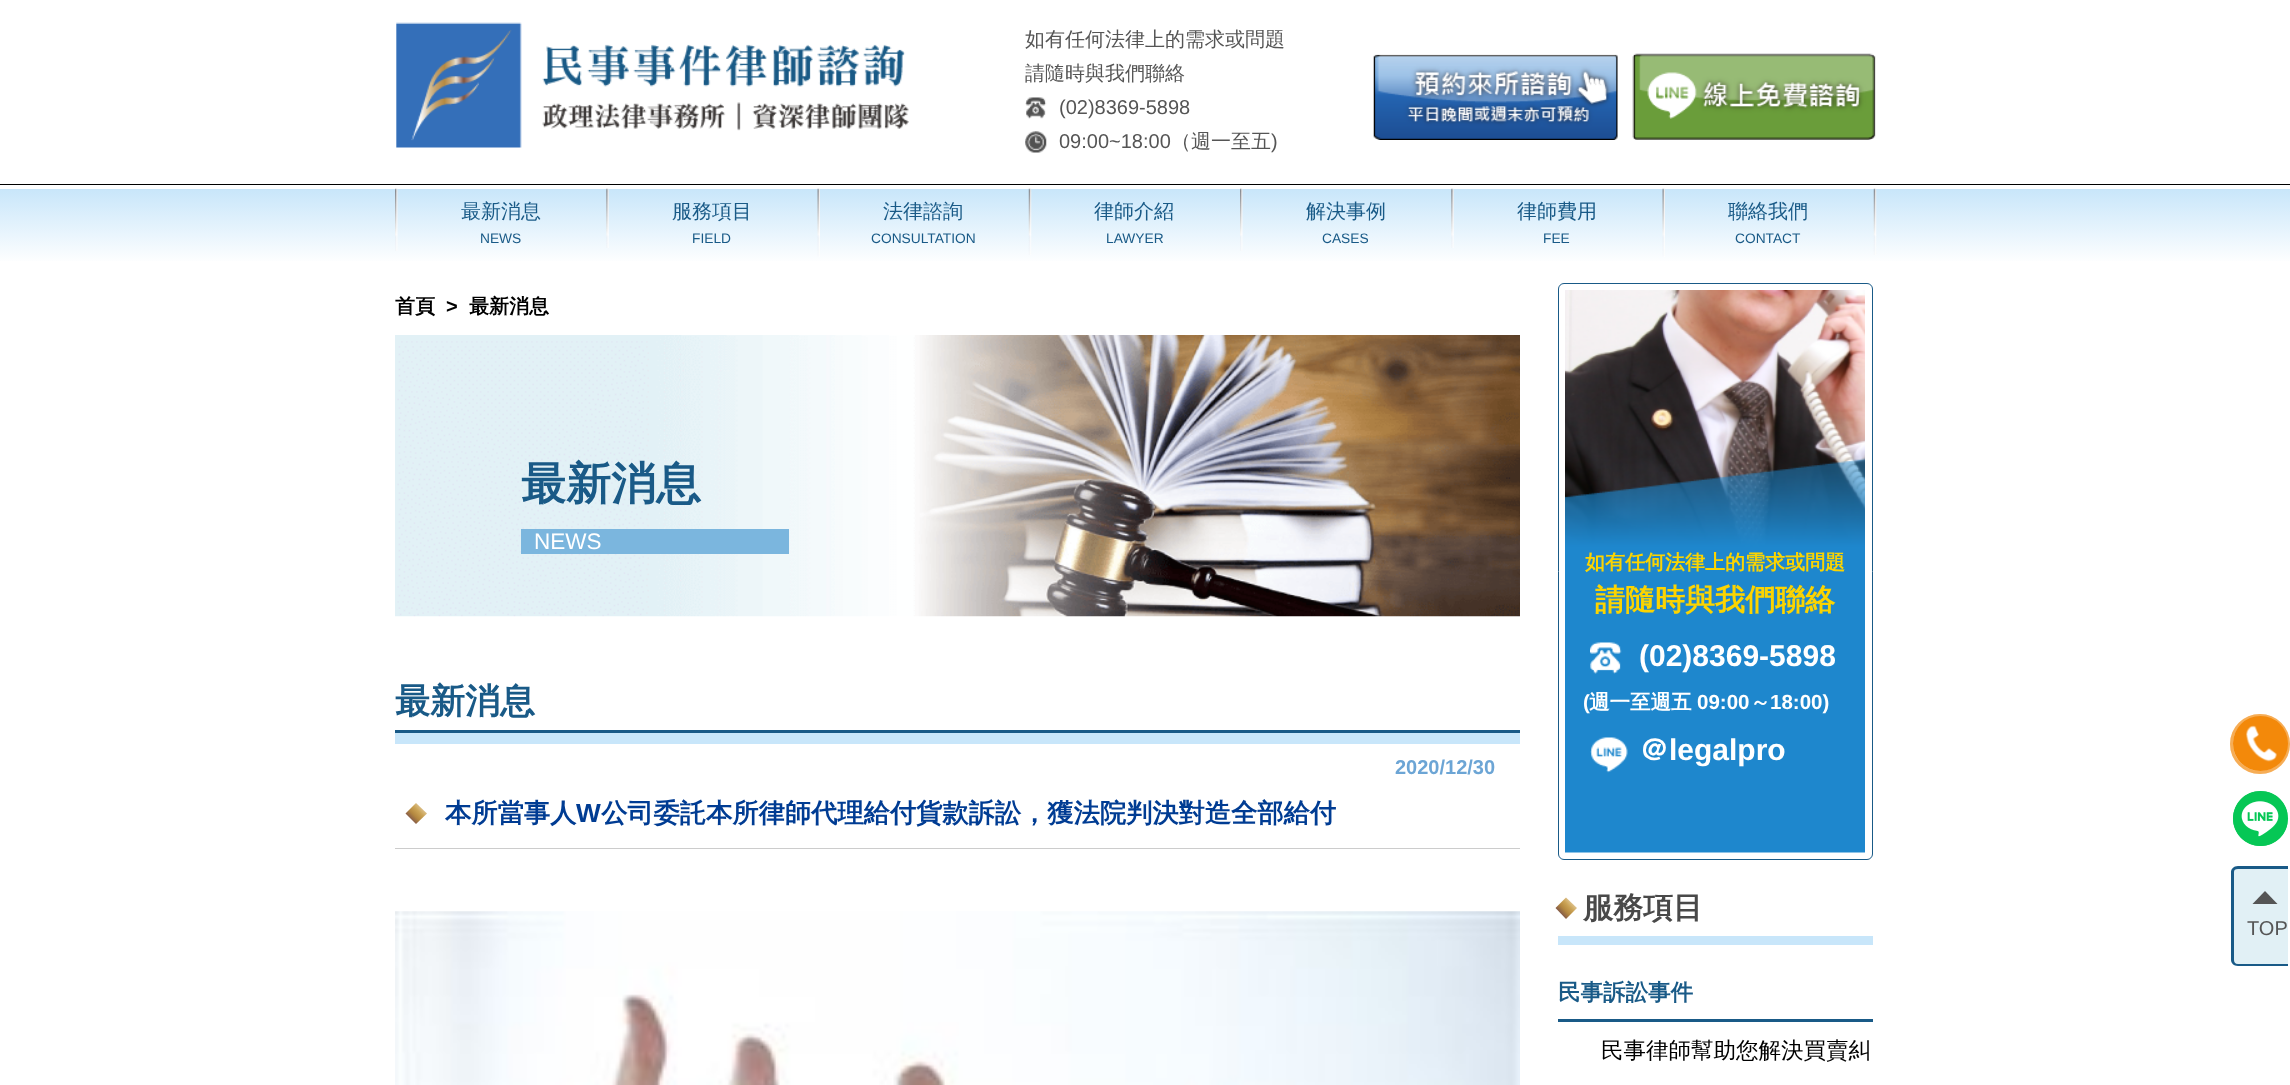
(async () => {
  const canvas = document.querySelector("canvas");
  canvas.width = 2290;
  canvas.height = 1085;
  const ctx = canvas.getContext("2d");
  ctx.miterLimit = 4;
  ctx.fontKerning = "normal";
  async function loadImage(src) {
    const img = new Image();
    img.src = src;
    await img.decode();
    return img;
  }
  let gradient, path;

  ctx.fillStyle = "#ffffff";
  ctx.fillRect(0, 0, 2290, 1085);
  ctx.drawImage(await loadImage("img/1.png"), 396, 22, 513, 126);
  ctx.drawImage(await loadImage("img/2.png"), 1025, 97, 22, 22);
  ctx.drawImage(await loadImage("img/3.png"), 1025, 131, 22, 22);
  ctx.drawImage(await loadImage("img/4.png"), 1373, 54, 245, 86);
  ctx.drawImage(await loadImage("img/5.png"), 1632, 53, 244, 87);
  ctx.fillStyle = "#000000";
  ctx.fillRect(0, 184, 2290, 1);
  gradient = ctx.createLinearGradient(1145, 189, 1145, 264);
  gradient.addColorStop(0, "#c8e6fa");
  gradient.addColorStop(1, "#ffffff");
  ctx.fillStyle = gradient;
  ctx.fillRect(0, 189, 2290, 72);
  ctx.drawImage(await loadImage("img/6.png"), 395, 188, 3, 63);
  ctx.drawImage(await loadImage("img/7.png"), 606, 188, 3, 60);
  ctx.drawImage(await loadImage("img/8.png"), 817, 188, 3, 69);
  ctx.drawImage(await loadImage("img/9.png"), 1028, 188, 4, 67);
  ctx.drawImage(await loadImage("img/6.png"), 1240, 188, 3, 63);
  ctx.drawImage(await loadImage("img/7.png"), 1451, 188, 3, 60);
  ctx.drawImage(await loadImage("img/8.png"), 1662, 188, 3, 69);
  ctx.drawImage(await loadImage("img/9.png"), 1873, 188, 4, 67);
  ctx.drawImage(await loadImage("img/10.png"), 395, 335, 1125, 282);
  for (const [x, y, w, h, color] of [
    [521, 529, 268, 25, "#7bb6de"],
    [395, 733, 1125, 11, "#c8e6fa"],
    [395, 730, 1125, 3, "#195a87"],
    [395, 848, 1125, 1, "#cccccc"],
  ]) {
    ctx.fillStyle = color;
    ctx.fillRect(x, y, w, h);
  }
  gradient = ctx.createLinearGradient(411, 819, 422, 808);
  gradient.addColorStop(0, "#895f47");
  gradient.addColorStop(0.33, "#b48840");
  gradient.addColorStop(0.68, "#caa254");
  gradient.addColorStop(1, "#dcc08a");
  ctx.fillStyle = gradient;
  path = new Path2D("M405.5 813.5L416 803L427 813.5L416 824Z");
  ctx.fill(path);
  ctx.drawImage(await loadImage("img/11.png"), 395, 911, 1125, 174);
  ctx.beginPath();
  ctx.roundRect(1558.5, 283.5, 314, 576, 5.5);
  ctx.strokeStyle = "#195a87";
  ctx.stroke();
  ctx.drawImage(await loadImage("img/12.png"), 1565, 290, 300, 563);
  ctx.drawImage(await loadImage("img/13.png"), 1590, 642, 32, 32);
  ctx.drawImage(await loadImage("img/14.png"), 1590, 737, 38, 36);
  ctx.fillStyle = "#c8e6fa";
  ctx.fillRect(1558, 936, 315, 9);
  gradient = ctx.createLinearGradient(1561, 913, 1572, 903);
  gradient.addColorStop(0, "#895f47");
  gradient.addColorStop(0.33, "#b48840");
  gradient.addColorStop(0.68, "#caa254");
  gradient.addColorStop(1, "#dcc08a");
  ctx.fillStyle = gradient;
  path = new Path2D("M1555.5 908L1566 897.5L1577 908L1566 919Z");
  ctx.fill(path);
  ctx.fillStyle = "#195a87";
  ctx.fillRect(1558, 1019, 315, 3);
  ctx.beginPath();
  ctx.arc(2260, 744, 28.5, 0, Math.PI * 2);
  ctx.strokeStyle = "#f9c485";
  ctx.lineWidth = 3;
  ctx.stroke();
  ctx.fillStyle = "rgba(243, 137, 10, 0.38)";
  ctx.beginPath();
  ctx.arc(2260, 744, 30, 0, Math.PI * 2);
  ctx.fill();
  ctx.fillStyle = "#f3890a";
  ctx.beginPath();
  ctx.arc(2260.5, 743.5, 27.5, 0, Math.PI * 2);
  ctx.fill();
  ctx.drawImage(await loadImage("img/15.png"), 2246, 725, 31, 37);
  ctx.fillStyle = "#06c755";
  ctx.beginPath();
  ctx.arc(2260.5, 818.5, 27.5, 0, Math.PI * 2);
  ctx.fill();
  ctx.drawImage(await loadImage("img/16.png"), 2233, 791, 55, 55);
  ctx.fillStyle = "#e1f0f5";
  ctx.beginPath();
  ctx.roundRect(2231, 866, 57, 100, [6, 0, 0, 6]);
  ctx.fill();
  ctx.fillStyle = "#195a87";
  path = new Path2D("M2238 866H2288V966H2238C2234 966 2231 963 2231 960V872C2231 869 2234 866 2238 866ZM2238 869H2288V964H2238C2235 964 2234 962 2234 960V872C2234 870 2235 869 2238 869Z");
  ctx.fill(path, "evenodd");
  ctx.fillStyle = "#555555";
  path = new Path2D("M2277.5 904H2252.5L2265 891Z");
  ctx.fill(path);
  ctx.font = "500 20px WenQuanYi Zen Hei";
  ctx.fillText("如有任何法律上的需求或問題", 1025, 46);
  ctx.fillText("請隨時與我們聯絡", 1025, 80);
  ctx.font = "20px Liberation Sans";
  ctx.fillText("(02)8369-5898", 1059, 114);
  ctx.fillText("09:00~18:00", 1059, 148);
  ctx.font = "500 20px WenQuanYi Zen Hei";
  ctx.fillText("（週一至五", 1171, 148);
  ctx.font = "20px Liberation Sans";
  ctx.fillText(")", 1271, 148);
  ctx.font = "500 20px WenQuanYi Zen Hei";
  ctx.fillStyle = "#195a87";
  ctx.fillText("最新消息", 461, 218);
  ctx.font = "13.75px Liberation Sans";
  ctx.fillText("NEWS", 480, 243);
  ctx.font = "500 20px WenQuanYi Zen Hei";
  ctx.fillText("服務項目", 672, 218);
  ctx.font = "13.75px Liberation Sans";
  ctx.fillText("FIELD", 692, 243);
  ctx.font = "500 20px WenQuanYi Zen Hei";
  ctx.fillText("法律諮詢", 883, 218);
  ctx.font = "13.75px Liberation Sans";
  ctx.fillText("CONSULTATION", 871, 243);
  ctx.font = "500 20px WenQuanYi Zen Hei";
  ctx.fillText("律師介紹", 1094, 218);
  ctx.font = "13.75px Liberation Sans";
  ctx.fillText("LAWYER", 1106, 243);
  ctx.font = "500 20px WenQuanYi Zen Hei";
  ctx.fillText("解決事例", 1306, 218);
  ctx.font = "13.75px Liberation Sans";
  ctx.fillText("CASES", 1322, 243);
  ctx.font = "500 20px WenQuanYi Zen Hei";
  ctx.fillText("律師費用", 1517, 218);
  ctx.font = "13.75px Liberation Sans";
  ctx.fillText("FEE", 1543, 243);
  ctx.font = "500 20px WenQuanYi Zen Hei";
  ctx.fillText("聯絡我們", 1728, 218);
  ctx.font = "13.75px Liberation Sans";
  ctx.fillText("CONTACT", 1735, 243);
  ctx.font = "bold 20px WenQuanYi Zen Hei";
  ctx.fillStyle = "#000000";
  ctx.fillText("首頁", 395, 313);
  ctx.font = "bold 20px Liberation Sans";
  ctx.fillText(">", 446, 313);
  ctx.font = "bold 20px WenQuanYi Zen Hei";
  ctx.fillText("最新消息", 469, 313);
  ctx.font = "bold 45px WenQuanYi Zen Hei";
  ctx.fillStyle = "#195a87";
  ctx.fillText("最新消息", 521, 499);
  ctx.font = "22.5px Liberation Sans";
  ctx.fillStyle = "#ffffff";
  ctx.fillText("NEWS", 534, 549);
  ctx.font = "bold 35px WenQuanYi Zen Hei";
  ctx.fillStyle = "#195a87";
  ctx.fillText("最新消息", 395, 713);
  ctx.font = "bold 20px Liberation Sans";
  ctx.fillStyle = "#6ca5d5";
  ctx.fillText("2020/12/30", 1395, 774);
  ctx.font = "bold 26.25px WenQuanYi Zen Hei";
  ctx.fillStyle = "#003c93";
  ctx.fillText("本所當事人", 445, 822);
  ctx.font = "bold 26.25px Liberation Sans";
  ctx.fillText("W", 576, 822);
  ctx.font = "bold 26.25px WenQuanYi Zen Hei";
  ctx.fillText("公司委託本所律師代理給付貨款訴訟，獲法院判決對造全部給付", 601, 822);
  ctx.font = "bold 20px WenQuanYi Zen Hei";
  ctx.fillStyle = "#fcd400";
  ctx.fillText("如有任何法律上的需求或問題", 1585, 569);
  ctx.font = "bold 30px WenQuanYi Zen Hei";
  ctx.fillText("請隨時與我們聯絡", 1595, 610);
  ctx.font = "bold 30px Liberation Sans";
  ctx.fillStyle = "#ffffff";
  ctx.fillText("(02)8369-5898", 1639, 666);
  ctx.font = "bold 20.5px Liberation Sans";
  ctx.fillText("(", 1583, 709);
  ctx.font = "bold 20.5px WenQuanYi Zen Hei";
  ctx.fillText("週一至週五", 1589, 709);
  ctx.font = "bold 20.5px Liberation Sans";
  ctx.fillText("09:00", 1697, 709);
  ctx.font = "bold 20.5px WenQuanYi Zen Hei";
  ctx.fillText("～", 1750, 709);
  ctx.font = "bold 20.5px Liberation Sans";
  ctx.fillText("18:00)", 1770, 709);
  ctx.font = "bold 30px WenQuanYi Zen Hei";
  ctx.fillText("＠", 1639, 760);
  ctx.font = "bold 30px Liberation Sans";
  ctx.fillText("legalpro", 1669, 760);
  ctx.font = "bold 30px WenQuanYi Zen Hei";
  ctx.fillStyle = "#494949";
  ctx.fillText("服務項目", 1583, 918);
  ctx.font = "bold 22.5px WenQuanYi Zen Hei";
  ctx.fillStyle = "#195a87";
  ctx.fillText("民事訴訟事件", 1558, 1000);
  ctx.font = "500 22.5px WenQuanYi Zen Hei";
  ctx.fillStyle = "#000000";
  ctx.fillText("民事律師幫助您解決買賣糾", 1601, 1058);
  ctx.font = "20px Liberation Sans";
  ctx.fillStyle = "#555555";
  ctx.fillText("TOP", 2247, 935);
})();
